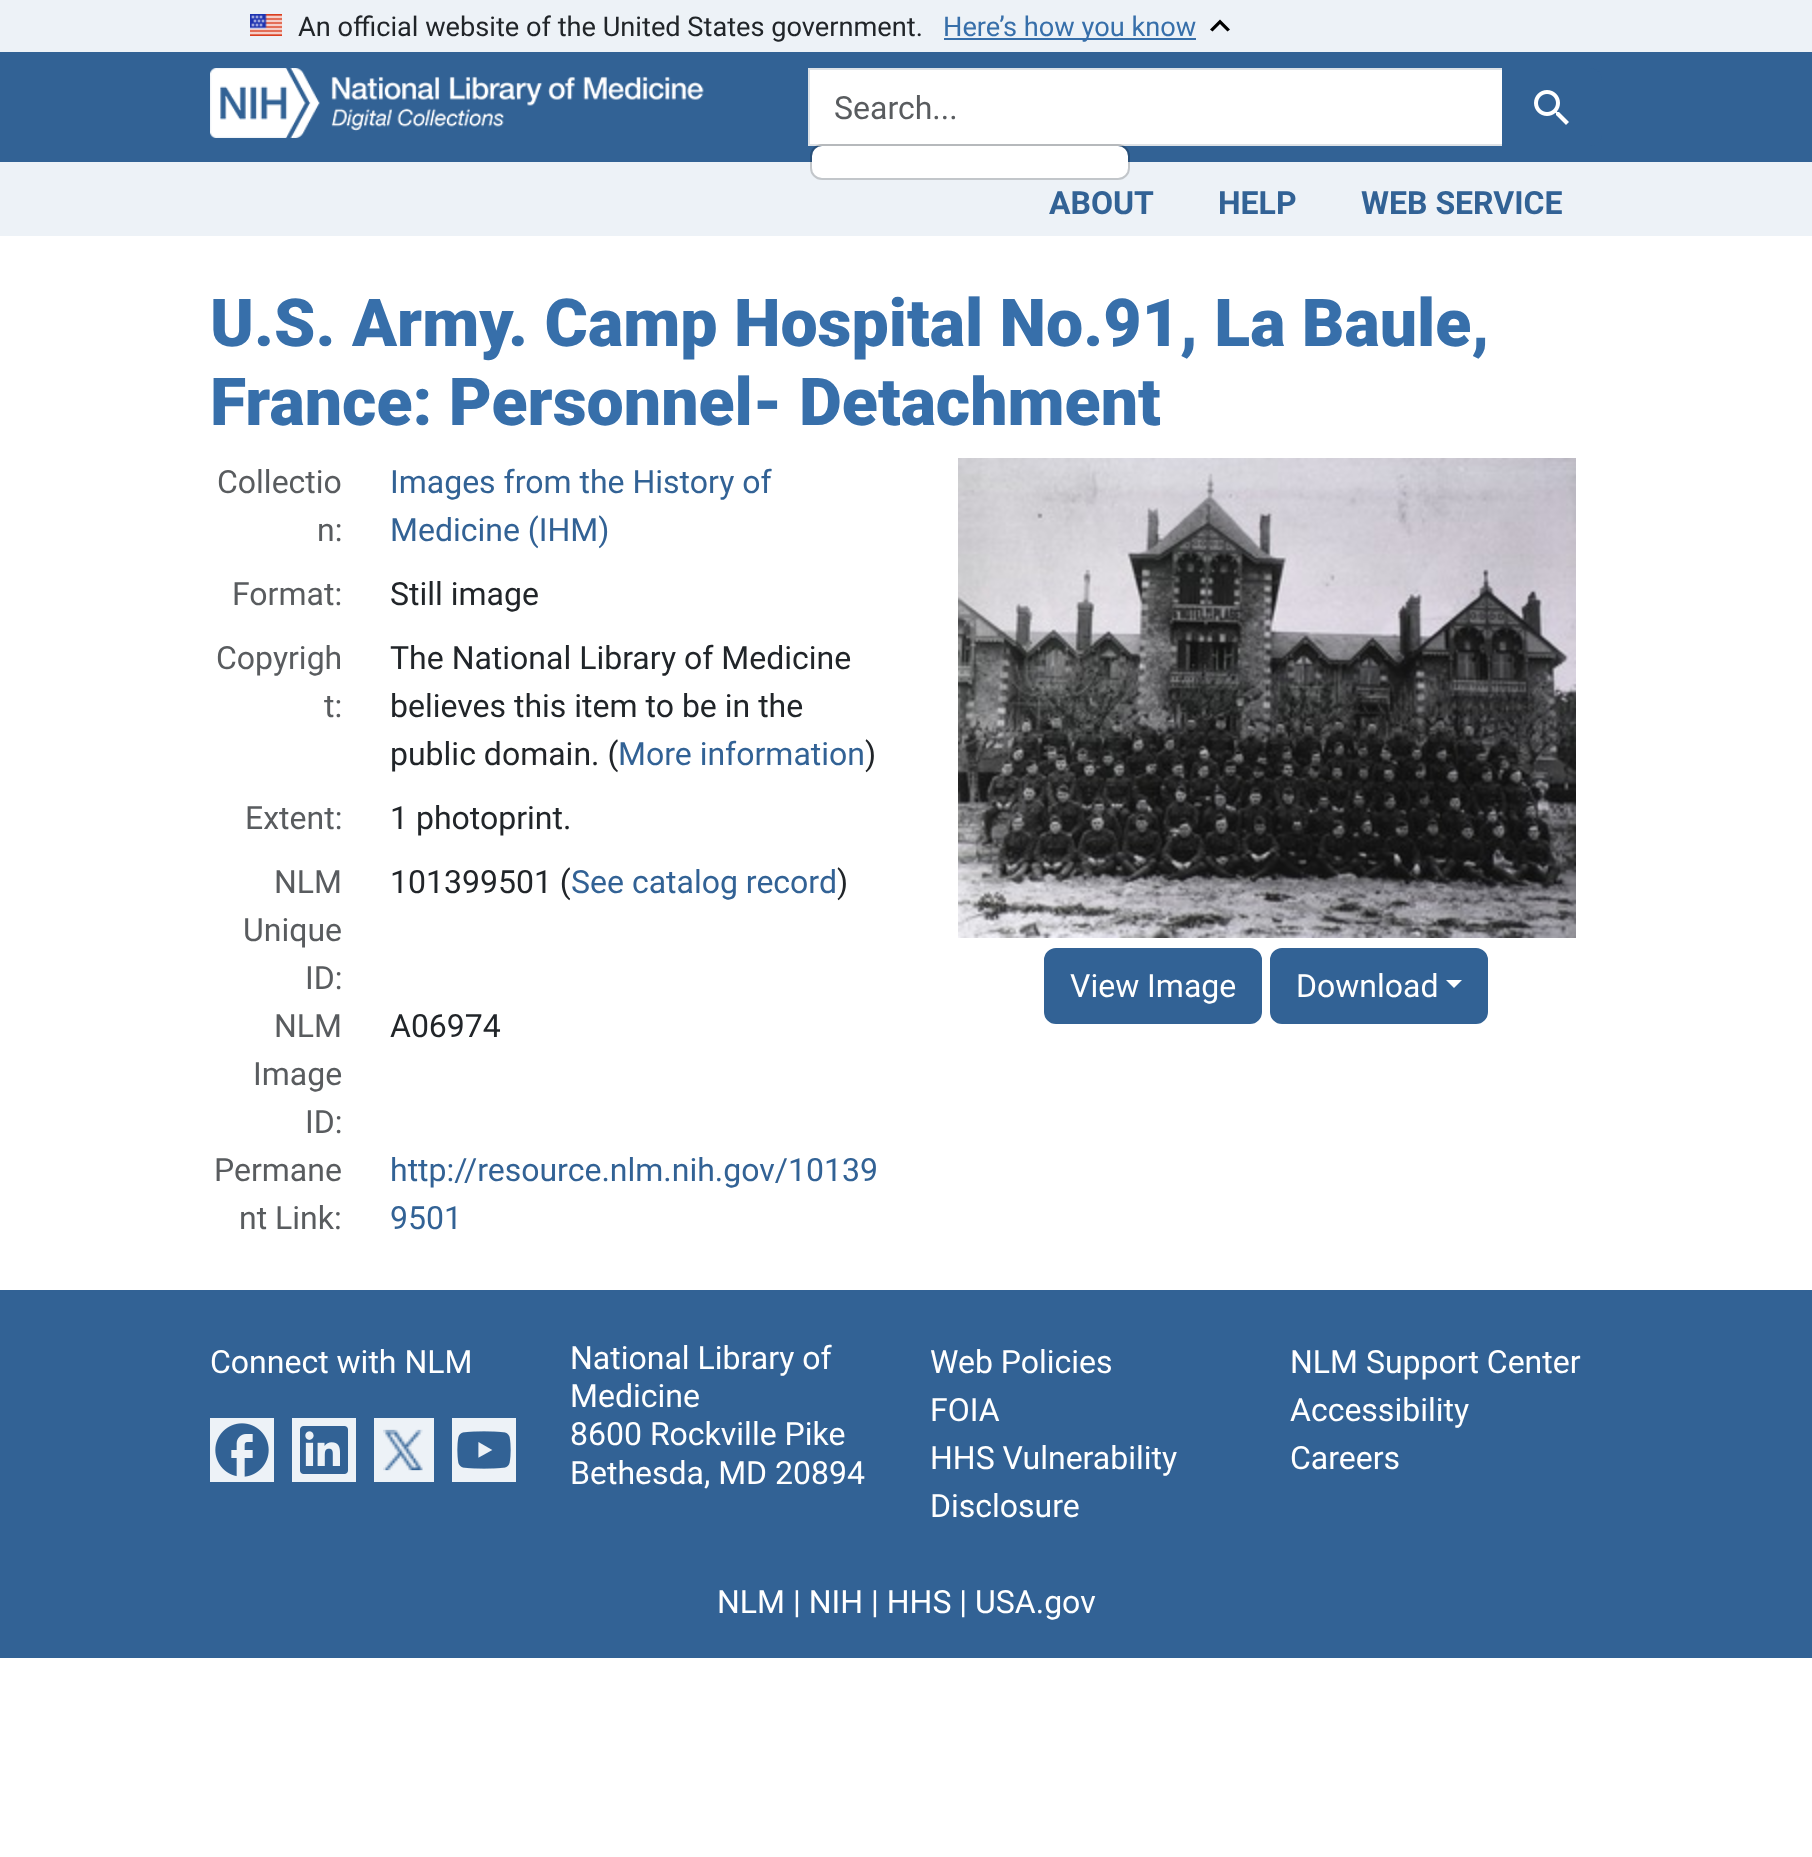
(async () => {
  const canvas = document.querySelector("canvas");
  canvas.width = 1812;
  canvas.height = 1857;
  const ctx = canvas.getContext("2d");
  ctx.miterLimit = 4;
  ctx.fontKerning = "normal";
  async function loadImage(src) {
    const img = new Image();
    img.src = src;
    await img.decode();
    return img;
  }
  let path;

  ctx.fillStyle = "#ffffff";
  ctx.fillRect(0, 0, 1812, 1857);
  ctx.fillStyle = "#edf2f7";
  ctx.fillRect(0, 0, 1812, 52);
  ctx.drawImage(await loadImage("img/1.png"), 250, 14, 32, 22);
  ctx.fillStyle = "#376faa";
  ctx.fillRect(944, 38, 252, 2);
  ctx.fillStyle = "#000000";
  path = new Path2D("M1220 19.5L1210 29.5L1212.5 31.5L1220 24L1227.5 31.5L1230 29.5Z");
  ctx.fill(path);
  ctx.fillStyle = "#326295";
  ctx.fillRect(0, 52, 1812, 110);
  ctx.drawImage(await loadImage("img/2.png"), 210, 68, 494, 70);
  ctx.fillStyle = "#ffffff";
  ctx.beginPath();
  ctx.rect(809, 69, 694, 76);
  ctx.fill();
  ctx.strokeStyle = "#dee2e6";
  ctx.lineWidth = 2;
  ctx.stroke();
  ctx.fillStyle = "#edf2f7";
  ctx.fillRect(0, 162, 1812, 74);
  ctx.fillStyle = "#ffffff";
  ctx.beginPath();
  ctx.roundRect(812, 146, 316, 32, 10);
  ctx.fill();
  ctx.beginPath();
  ctx.roundRect(811, 145, 318, 34, 11);
  ctx.strokeStyle = "rgba(0, 0, 0, 0.18)";
  ctx.stroke();
  ctx.fillStyle = "#326295";
  ctx.beginPath();
  ctx.roundRect(1502, 68, 100, 78, [0, 12, 12, 0]);
  ctx.fill();
  ctx.drawImage(await loadImage("img/3.png"), 1534, 90, 35, 35);
  ctx.drawImage(await loadImage("img/4.png"), 958, 458, 618, 480);
  ctx.beginPath();
  ctx.roundRect(1045, 949, 216, 74, 11);
  ctx.fill();
  ctx.strokeStyle = "#326295";
  ctx.stroke();
  ctx.beginPath();
  ctx.roundRect(1271, 949, 216, 74, 11);
  ctx.fill();
  ctx.stroke();
  ctx.fillStyle = "#ffffff";
  path = new Path2D("M1446 980H1462L1454 988Z");
  ctx.fill(path);
  ctx.fillStyle = "#326295";
  ctx.fillRect(0, 1290, 1812, 368);
  ctx.fillStyle = "#edf2f7";
  ctx.fillRect(210, 1418, 64, 64);
  ctx.drawImage(await loadImage("img/5.png"), 215, 1423, 54, 54);
  ctx.fillRect(292, 1418, 64, 64);
  ctx.drawImage(await loadImage("img/6.png"), 300, 1426, 48, 48);
  ctx.fillRect(374, 1418, 60, 64);
  ctx.drawImage(await loadImage("img/7.png"), 383, 1429, 40, 42);
  ctx.fillRect(452, 1418, 64, 64);
  ctx.drawImage(await loadImage("img/8.png"), 457, 1431, 54, 38);
  ctx.font = "27.2px Roboto";
  ctx.fillStyle = "#212529";
  ctx.fillText("An official website of the United States government.", 298, 36);
  ctx.fillStyle = "#376faa";
  ctx.fillText("Here’s how you know", 943, 36);
  ctx.font = "32px Roboto";
  ctx.fillStyle = "#595c5f";
  ctx.fillText("Search...", 834, 119);
  ctx.font = "bold 32px Roboto";
  ctx.fillStyle = "#326295";
  for (const [text, x, y] of [
    ["ABOUT", 1049, 214],
    ["HELP", 1218, 214],
    ["WEB SERVICE", 1361, 214],
  ]) {
    ctx.fillText(text, x, y);
  }
  ctx.font = "900 66.2px Roboto";
  ctx.fillStyle = "#376faa";
  ctx.fillText("U.S. Army. Camp Hospital No.91, La Baule,", 210, 346);
  ctx.fillText("France: Personnel- Detachment", 210, 425);
  ctx.font = "32px Roboto";
  ctx.fillStyle = "#595c5f";
  ctx.fillText("Collectio", 217, 493);
  ctx.fillText("n:", 317, 541);
  ctx.fillStyle = "#326295";
  ctx.fillText("Images from the History of", 390, 493);
  ctx.fillText("Medicine (IHM)", 390, 541);
  ctx.fillStyle = "#595c5f";
  ctx.fillText("Format:", 232, 605);
  ctx.fillStyle = "#212529";
  ctx.fillText("Still image", 390, 605);
  ctx.fillStyle = "#595c5f";
  ctx.fillText("Copyrigh", 216, 669);
  ctx.fillText("t:", 324, 717);
  ctx.fillStyle = "#212529";
  for (const [text, x, y] of [
    ["The National Library of Medicine", 390, 669],
    ["believes this item to be in the", 390, 717],
    ["public domain. (", 390, 765],
  ]) {
    ctx.fillText(text, x, y);
  }
  ctx.fillStyle = "#326295";
  ctx.fillText("More information", 618, 765);
  ctx.fillStyle = "#212529";
  ctx.fillText(")", 865, 765);
  ctx.fillStyle = "#595c5f";
  ctx.fillText("Extent:", 245, 829);
  ctx.fillStyle = "#212529";
  ctx.fillText("1 photoprint.", 390, 829);
  ctx.fillStyle = "#595c5f";
  for (const [text, x, y] of [
    ["NLM", 274, 893],
    ["Unique", 243, 941],
    ["ID:", 305, 989],
  ]) {
    ctx.fillText(text, x, y);
  }
  ctx.fillStyle = "#212529";
  ctx.fillText("101399501 (", 390, 893);
  ctx.fillStyle = "#326295";
  ctx.fillText("See catalog record", 571, 893);
  ctx.fillStyle = "#212529";
  ctx.fillText(")", 837, 893);
  ctx.fillStyle = "#595c5f";
  for (const [text, x, y] of [
    ["NLM", 274, 1037],
    ["Image", 253, 1085],
    ["ID:", 305, 1133],
  ]) {
    ctx.fillText(text, x, y);
  }
  ctx.fillStyle = "#212529";
  ctx.fillText("A06974", 390, 1037);
  ctx.fillStyle = "#595c5f";
  ctx.fillText("Permane", 214, 1181);
  ctx.fillText("nt Link:", 239, 1229);
  ctx.fillStyle = "#326295";
  ctx.fillText("http://resource.nlm.nih.gov/10139", 390, 1181);
  ctx.fillText("9501", 390, 1229);
  ctx.fillStyle = "#ffffff";
  for (const [text, x, y] of [
    ["View Image", 1070, 997],
    ["Download", 1296, 997],
    ["Connect with NLM", 210, 1373],
    ["National Library of", 570, 1369],
    ["Medicine", 570, 1407],
    ["8600 Rockville Pike", 570, 1445],
    ["Bethesda, MD 20894", 570, 1484],
    ["Web Policies", 930, 1373],
    ["FOIA", 930, 1421],
    ["HHS Vulnerability", 930, 1469],
    ["Disclosure", 930, 1517],
    ["NLM Support Center", 1290, 1373],
    ["Accessibility", 1290, 1421],
    ["Careers", 1290, 1469],
    ["NLM | NIH | HHS | USA.gov", 717, 1613],
  ]) {
    ctx.fillText(text, x, y);
  }
})();
